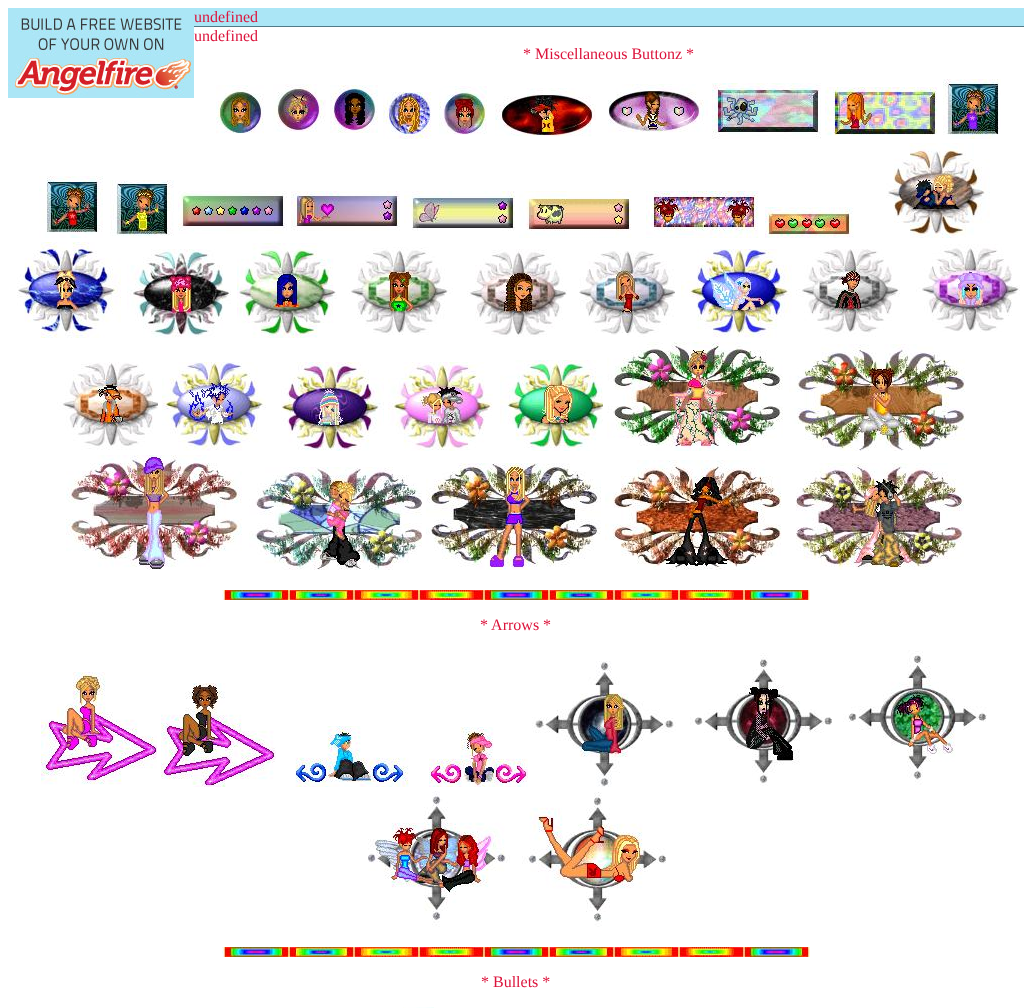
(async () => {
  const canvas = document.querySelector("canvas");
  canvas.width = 1032;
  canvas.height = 1008;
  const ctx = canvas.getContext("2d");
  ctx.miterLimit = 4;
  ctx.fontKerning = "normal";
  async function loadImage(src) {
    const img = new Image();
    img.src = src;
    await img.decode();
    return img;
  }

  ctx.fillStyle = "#ffffff";
  ctx.fillRect(0, 0, 1032, 1008);
  ctx.fillStyle = "#abe6f6";
  ctx.fillRect(8, 8, 1016, 18);
  ctx.fillStyle = "#507a87";
  ctx.fillRect(194, 26, 830, 1);
  ctx.drawImage(await loadImage("img/1.png"), 8, 16, 186, 82);
  ctx.drawImage(await loadImage("img/2.png"), 216, 85, 48, 49);
  ctx.drawImage(await loadImage("img/3.png"), 273, 84, 53, 48);
  ctx.drawImage(await loadImage("img/4.png"), 330, 85, 48, 48);
  ctx.drawImage(await loadImage("img/5.png"), 383, 92, 49, 47);
  ctx.drawImage(await loadImage("img/6.png"), 439, 86, 48, 49);
  ctx.drawImage(await loadImage("img/7.png"), 495, 88, 101, 49);
  ctx.drawImage(await loadImage("img/8.png"), 608, 84, 100, 49);
  ctx.drawImage(await loadImage("img/9.png"), 712, 83, 109, 56);
  ctx.drawImage(await loadImage("img/10.png"), 825, 87, 113, 49);
  ctx.drawImage(await loadImage("img/11.png"), 943, 79, 58, 60);
  ctx.drawImage(await loadImage("img/12.png"), 39, 176, 64, 62);
  ctx.drawImage(await loadImage("img/13.png"), 110, 180, 64, 58);
  ctx.drawImage(await loadImage("img/14.png"), 178, 191, 109, 43);
  ctx.drawImage(await loadImage("img/15.png"), 291, 191, 109, 40);
  ctx.drawImage(await loadImage("img/16.png"), 404, 191, 111, 40);
  ctx.drawImage(await loadImage("img/17.png"), 519, 191, 113, 47);
  ctx.drawImage(await loadImage("img/18.png"), 646, 191, 113, 47);
  ctx.drawImage(await loadImage("img/19.png"), 765, 207, 89, 31);
  ctx.drawImage(await loadImage("img/20.png"), 886, 143, 104, 95);
  ctx.drawImage(await loadImage("img/21.png"), 17, 242, 104, 96);
  ctx.drawImage(await loadImage("img/22.png"), 127, 249, 104, 89);
  ctx.drawImage(await loadImage("img/23.png"), 237, 243, 100, 95);
  ctx.drawImage(await loadImage("img/24.png"), 349, 247, 104, 88);
  ctx.drawImage(await loadImage("img/25.png"), 467, 249, 100, 88);
  ctx.drawImage(await loadImage("img/26.png"), 579, 251, 96, 86);
  ctx.drawImage(await loadImage("img/27.png"), 681, 249, 111, 89);
  ctx.drawImage(await loadImage("img/28.png"), 796, 249, 104, 88);
  ctx.drawImage(await loadImage("img/29.png"), 916, 244, 104, 88);
  ctx.drawImage(await loadImage("img/30.png"), 57, 362, 101, 88);
  ctx.drawImage(await loadImage("img/31.png"), 162, 362, 104, 89);
  ctx.drawImage(await loadImage("img/32.png"), 281, 362, 103, 89);
  ctx.drawImage(await loadImage("img/33.png"), 388, 362, 105, 89);
  ctx.drawImage(await loadImage("img/34.png"), 500, 360, 103, 91);
  ctx.drawImage(await loadImage("img/35.png"), 607, 342, 176, 109);
  ctx.drawImage(await loadImage("img/36.png"), 789, 344, 176, 107);
  ctx.drawImage(await loadImage("img/37.png"), 66, 455, 176, 115);
  ctx.drawImage(await loadImage("img/38.png"), 249, 467, 173, 103);
  ctx.drawImage(await loadImage("img/39.png"), 426, 463, 175, 107);
  ctx.drawImage(await loadImage("img/40.png"), 605, 460, 177, 110);
  ctx.drawImage(await loadImage("img/41.png"), 796, 463, 168, 107);
  ctx.drawImage(await loadImage("img/42.png"), 222, 590, 588, 10);
  ctx.drawImage(await loadImage("img/43.png"), 41, 672, 116, 113);
  ctx.drawImage(await loadImage("img/44.png"), 161, 683, 115, 104);
  ctx.drawImage(await loadImage("img/45.png"), 295, 726, 114, 61);
  ctx.drawImage(await loadImage("img/46.png"), 429, 727, 99, 60);
  ctx.drawImage(await loadImage("img/47.png"), 532, 661, 144, 126);
  ctx.drawImage(await loadImage("img/48.png"), 690, 653, 142, 133);
  ctx.drawImage(await loadImage("img/49.png"), 843, 650, 144, 135);
  ctx.drawImage(await loadImage("img/50.png"), 368, 791, 142, 136);
  ctx.drawImage(await loadImage("img/51.png"), 522, 792, 144, 135);
  ctx.drawImage(await loadImage("img/42.png"), 222, 947, 588, 10);
  ctx.drawImage(await loadImage("img/52.png"), 403, 1007, 31, 1);
  ctx.font = "16px Liberation Serif";
  ctx.fillStyle = "#dc143c";
  for (const [text, x, y] of [
    ["undefined", 194, 22],
    ["undefined", 194, 41],
    ["* Miscellaneous Buttonz *", 523, 59],
    ["* Arrows *", 480, 630],
    ["* Bullets *", 481, 987],
  ]) {
    ctx.fillText(text, x, y);
  }
})();
